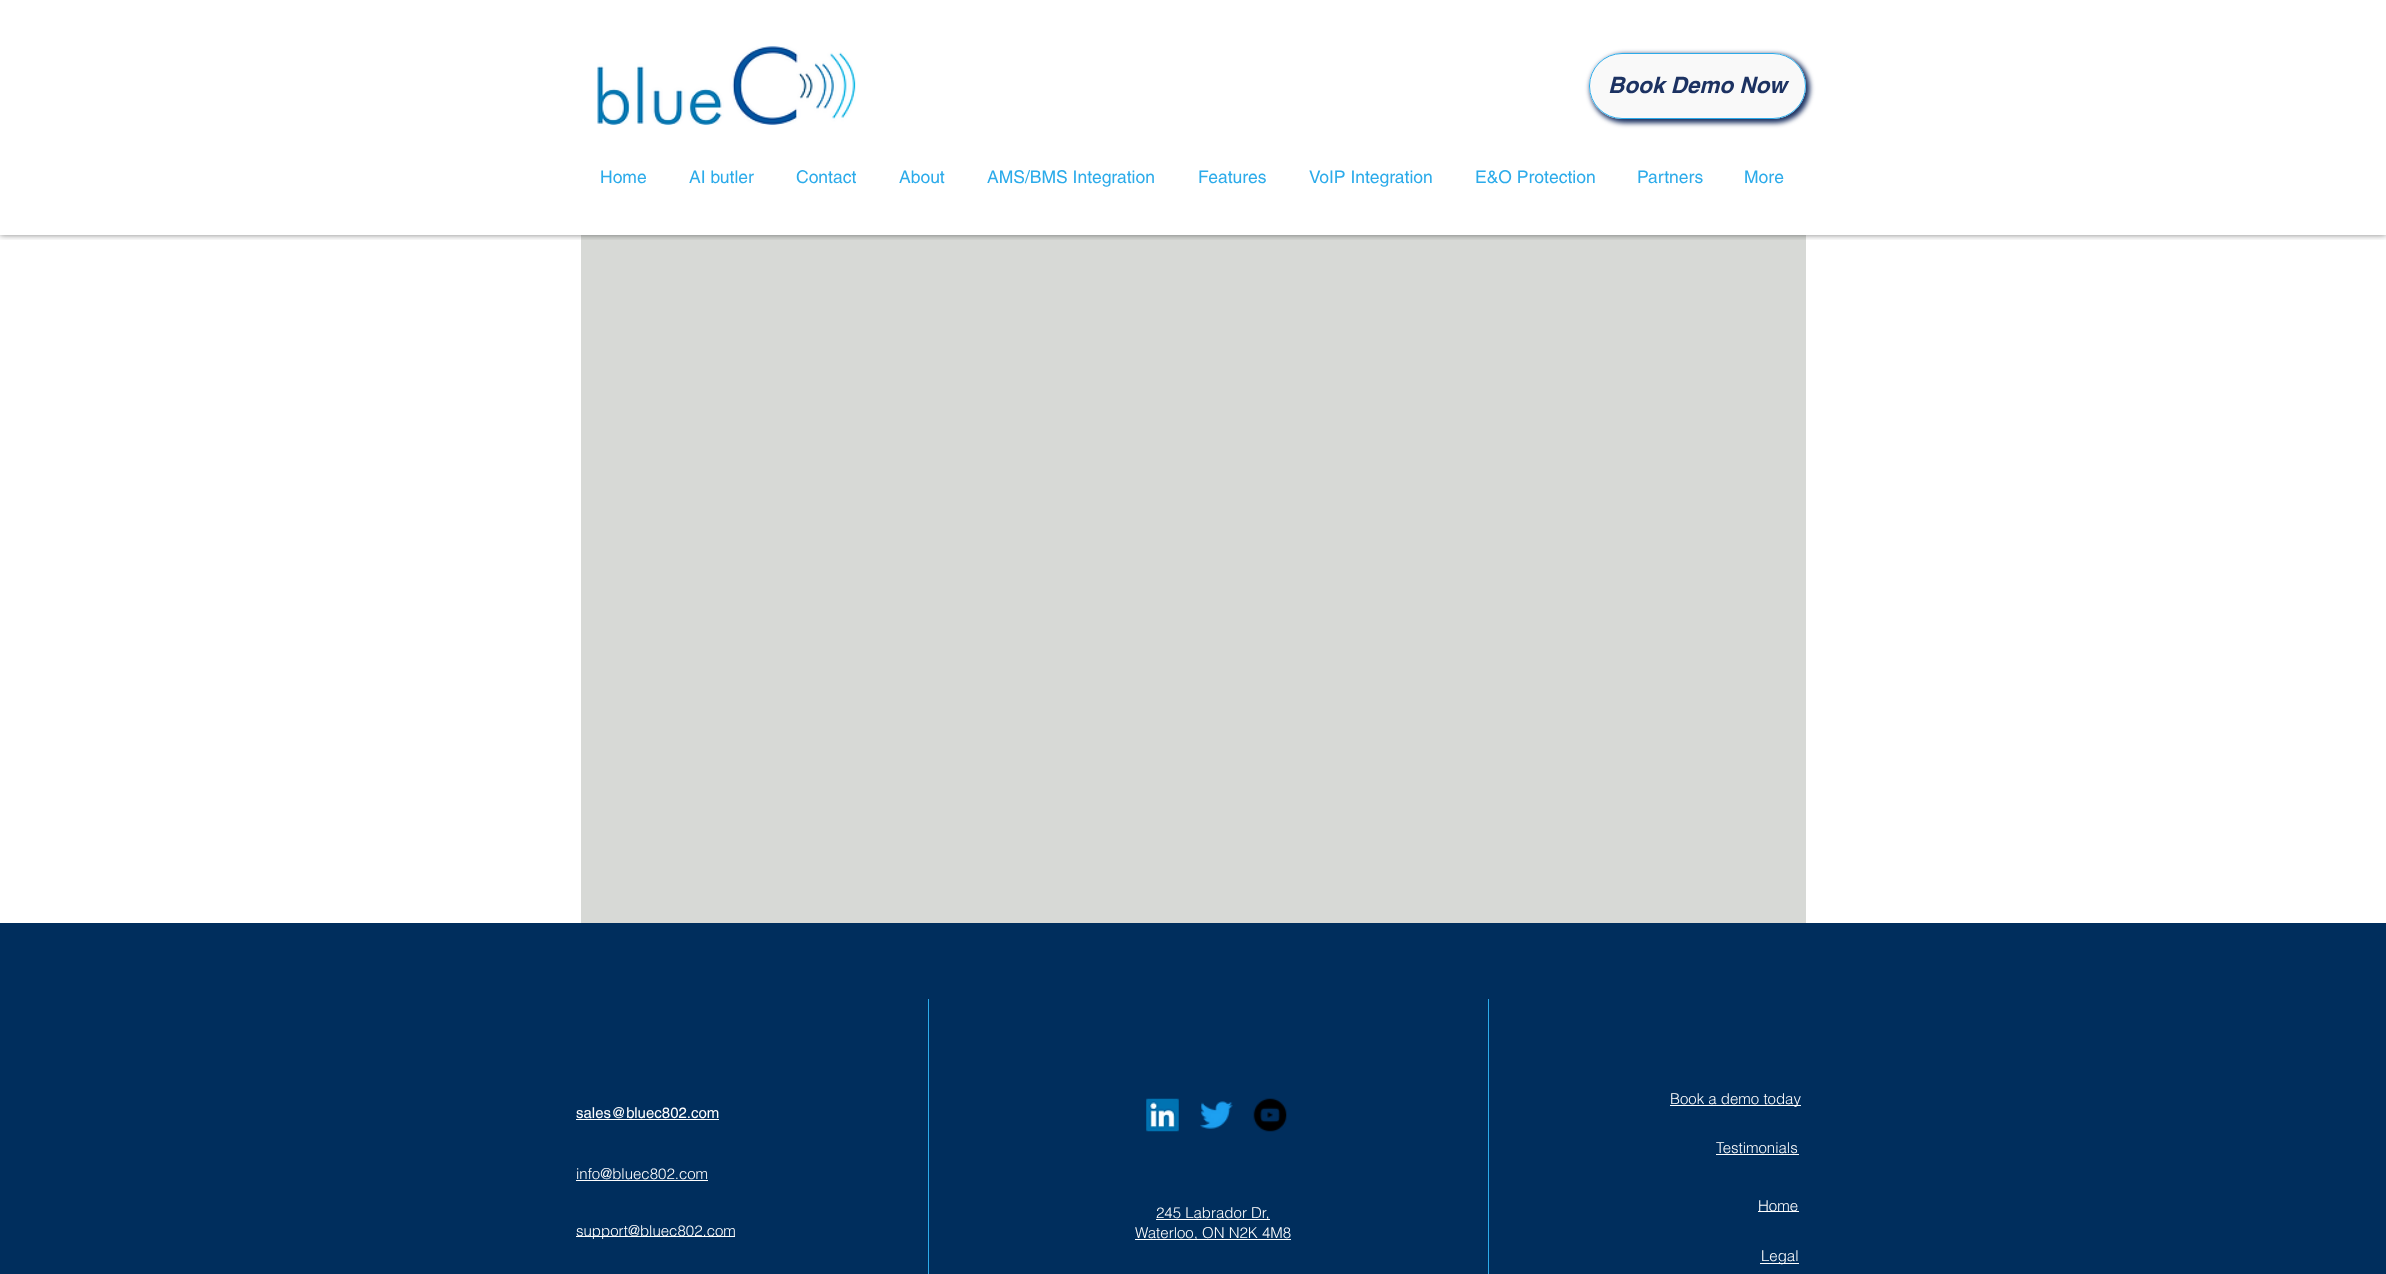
(async () => {
  const canvas = document.querySelector("canvas");
  canvas.width = 2386;
  canvas.height = 1274;
  const ctx = canvas.getContext("2d");
  ctx.miterLimit = 4;
  ctx.fontKerning = "normal";
  async function loadImage(src) {
    const img = new Image();
    img.src = src;
    await img.decode();
    return img;
  }
  let path;

  ctx.fillStyle = "#ffffff";
  ctx.fillRect(0, 0, 2386, 1274);
  ctx.fillStyle = "#d7d9d6";
  ctx.fillRect(581, 235, 1225, 688);
  ctx.save();
  ctx.beginPath();
  ctx.rect(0, 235, 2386, 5);
  ctx.clip();
  ctx.fillStyle = "rgba(0, 0, 0, 0.5)";
  ctx.filter = "blur(3px)";
  ctx.beginPath();
  ctx.rect(0, 0, 2386, 235);
  ctx.fill();
  ctx.filter = "none";
  ctx.restore();
  ctx.drawImage(await loadImage("img/1.png"), 597, 46, 259, 79);
  ctx.save();
  path = new Path2D("M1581 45H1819V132H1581ZM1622 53H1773C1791 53 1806 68 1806 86C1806 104 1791 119 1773 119H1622C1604 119 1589 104 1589 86C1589 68 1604 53 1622 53Z");
  ctx.clip(path, "evenodd");
  ctx.fillStyle = "#1c3262";
  ctx.filter = "blur(2.5px)";
  ctx.beginPath();
  ctx.roundRect(1590, 54, 220, 69, 34.5);
  ctx.fill();
  ctx.filter = "none";
  ctx.restore();
  ctx.fillStyle = "rgba(239, 239, 239, 0.4)";
  ctx.beginPath();
  ctx.roundRect(1589.5, 53.5, 216, 65, 32.5);
  ctx.fill();
  ctx.strokeStyle = "#2cabea";
  ctx.stroke();
  for (const [x, y, w, h, color] of [
    [0, 923, 2386, 351, "#002e5d"],
    [576, 1119, 143, 1, "#ffffff"],
    [928, 999, 1, 275, "#2cabea"],
  ]) {
    ctx.fillStyle = color;
    ctx.fillRect(x, y, w, h);
  }
  ctx.drawImage(await loadImage("img/2.png"), 1146, 1098, 33, 34);
  ctx.drawImage(await loadImage("img/3.png"), 1200, 1101, 33, 28);
  ctx.drawImage(await loadImage("img/4.png"), 1253, 1098, 34, 34);
  for (const [x, y, w, h, color] of [
    [1488, 999, 1, 275, "#2cabea"],
    [1670, 1105, 131, 1, "#ffffff"],
    [1716, 1154, 83, 1, "#ffffff"],
    [576, 1180, 132, 1, "#ffffff"],
    [576, 1236, 159, 1, "#ffffff"],
    [1156, 1219, 114, 1, "#ffffff"],
    [1135, 1239, 156, 1, "#ffffff"],
    [1758, 1211, 41, 1, "#ffffff"],
    [1760, 1263, 39, 1, "#ffffff"],
  ]) {
    ctx.fillStyle = color;
    ctx.fillRect(x, y, w, h);
  }
  ctx.font = "italic bold 22.5px helvetica";
  ctx.fillStyle = "#1c3262";
  ctx.fillText("Book Demo Now", 1608, 93);
  ctx.font = "17.5px helvetica";
  ctx.fillStyle = "#2cabea";
  for (const [text, x, y] of [
    ["Home", 600, 183],
    ["AI butler", 689, 183],
    ["Contact", 796, 183],
    ["About", 899, 183],
    ["AMS/BMS Integration", 987, 183],
    ["Features", 1198, 183],
    ["VoIP Integration", 1309, 183],
    ["E&O Protection", 1475, 183],
    ["Partners", 1637, 183],
    ["More", 1744, 183],
  ]) {
    ctx.fillText(text, x, y);
  }
  ctx.font = "15px helvetica";
  ctx.fillStyle = "#ffffff";
  ctx.fillText("sales@bluec802.com", 576, 1118);
  ctx.font = "300 15px helvetica";
  for (const [text, x, y] of [
    ["Book a demo today", 1670, 1104],
    ["Testimonials", 1716, 1153],
    ["info@bluec802.com", 576, 1179],
    ["support@bluec802.com", 576, 1236],
    ["245 Labrador Dr,", 1156, 1218],
    ["Waterloo, ON N2K 4M8", 1135, 1238],
    ["Home", 1758, 1211],
    ["Legal", 1761, 1261],
  ]) {
    ctx.fillText(text, x, y);
  }
})();
